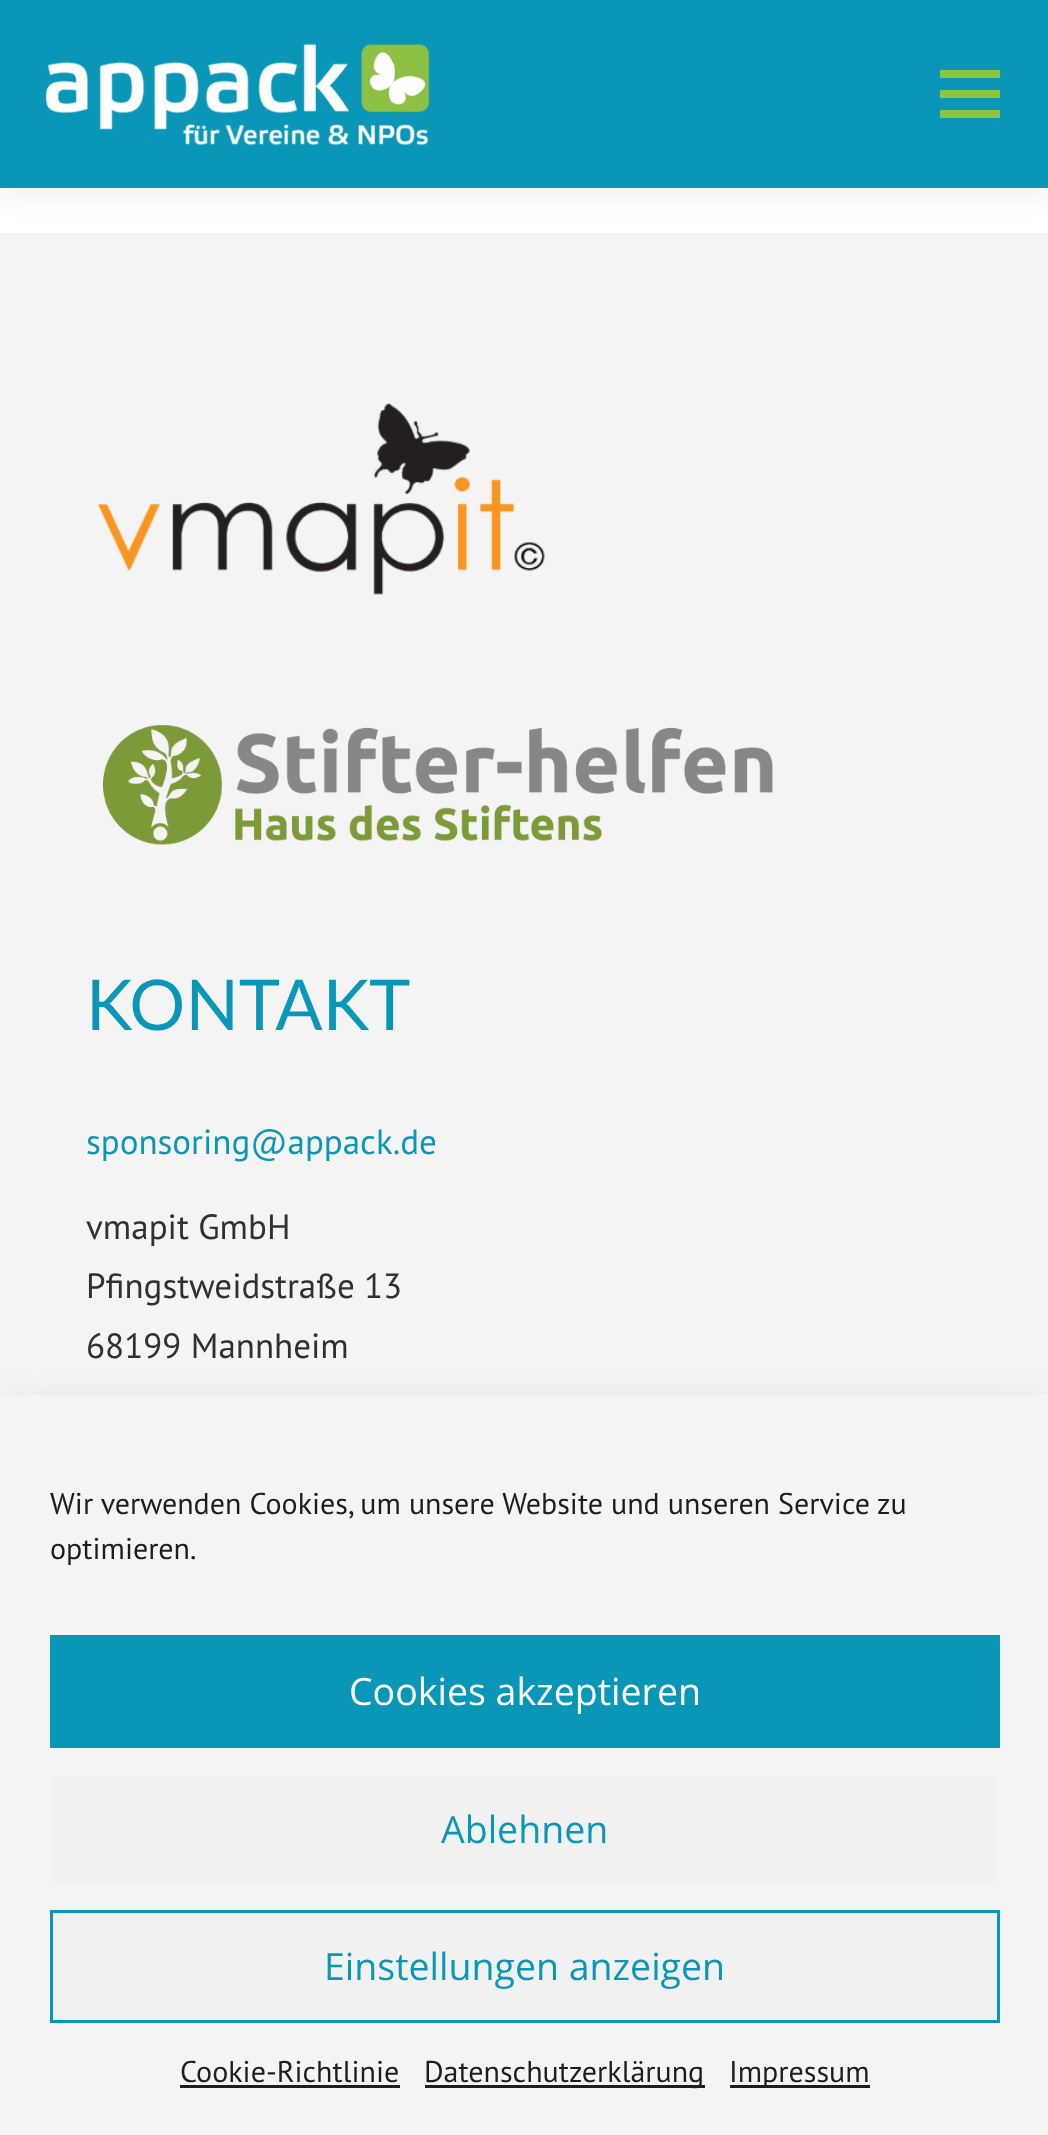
(async () => {
  const canvas = document.querySelector("canvas");
  canvas.width = 1048;
  canvas.height = 2135;
  const ctx = canvas.getContext("2d");
  ctx.miterLimit = 4;
  ctx.fontKerning = "normal";
  async function loadImage(src) {
    const img = new Image();
    img.src = src;
    await img.decode();
    return img;
  }

  ctx.fillStyle = "#ffffff";
  ctx.fillRect(0, 0, 1048, 2135);
  ctx.fillStyle = "#f4f4f4";
  ctx.fillRect(0, 233, 1048, 1162);
  ctx.fillStyle = "rgba(50, 50, 50, 0.06)";
  ctx.filter = "blur(12.5px)";
  ctx.beginPath();
  ctx.rect(0, 13, 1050, 187);
  ctx.fill();
  ctx.filter = "none";
  ctx.fillStyle = "#0a97b7";
  ctx.fillRect(0, 0, 1048, 188);
  ctx.drawImage(await loadImage("img/1.png"), 45, 43, 385, 102);
  for (const [x, y, w, h, color] of [
    [940, 90, 60, 8, "#8cc63f"],
    [940, 70, 60, 8, "#8cc63f"],
    [940, 110, 60, 8, "#8cc63f"],
  ]) {
    ctx.fillStyle = color;
    ctx.fillRect(x, y, w, h);
  }
  ctx.drawImage(await loadImage("img/2.png"), 98, 403, 447, 192);
  ctx.drawImage(await loadImage("img/3.png"), 102, 725, 671, 120);
  ctx.fillStyle = "rgba(0, 0, 0, 0.19)";
  ctx.filter = "blur(25px)";
  ctx.beginPath();
  ctx.rect(0, 1420, 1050, 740);
  ctx.fill();
  ctx.filter = "none";
  for (const [x, y, w, h, color] of [
    [0, 1395, 1048, 740, "#f4f4f4"],
    [50, 1635, 950, 113, "#0a97b7"],
    [53, 1776, 944, 106, "#f1f1f1"],
  ]) {
    ctx.fillStyle = color;
    ctx.fillRect(x, y, w, h);
  }
  ctx.beginPath();
  ctx.rect(51.5, 1911.5, 947, 110);
  ctx.fill();
  ctx.strokeStyle = "#0a97b7";
  ctx.lineWidth = 3;
  ctx.stroke();
  for (const [x, y, w, h, color] of [
    [180, 2085, 220, 3, "#191e23"],
    [425, 2085, 280, 3, "#191e23"],
    [730, 2085, 140, 3, "#191e23"],
  ]) {
    ctx.fillStyle = color;
    ctx.fillRect(x, y, w, h);
  }
  ctx.font = "70px Lato";
  ctx.fillStyle = "#0a97b7";
  ctx.fillText("KONTAKT", 86, 1030);
  ctx.font = "35px PT Sans";
  ctx.fillText("sponsoring@appack.de", 86, 1154);
  ctx.fillStyle = "#303030";
  for (const [text, x, y] of [
    ["vmapit GmbH", 86, 1239],
    ["Pfingstweidstraße 13", 86, 1298],
    ["68199 Mannheim", 86, 1358],
  ]) {
    ctx.fillText(text, x, y);
  }
  ctx.font = "30px PT Sans";
  ctx.fillStyle = "#191e23";
  ctx.fillText("Wir verwenden Cookies, um unsere Website und unseren Service zu", 50, 1514);
  ctx.fillText("optimieren.", 50, 1559);
  ctx.font = "37.5px Open Sans";
  ctx.fillStyle = "#ffffff";
  ctx.fillText("Cookies akzeptieren", 349, 1705);
  ctx.fillStyle = "#0a97b7";
  ctx.fillText("Ablehnen", 441, 1843);
  ctx.fillText("Einstellungen anzeigen", 324, 1980);
  ctx.font = "30px PT Sans";
  ctx.fillStyle = "#191e23";
  for (const [text, x, y] of [
    ["Cookie-Richtlinie", 180, 2082],
    ["Datenschutzerklärung", 424, 2082],
    ["Impressum", 729, 2082],
  ]) {
    ctx.fillText(text, x, y);
  }
})();
